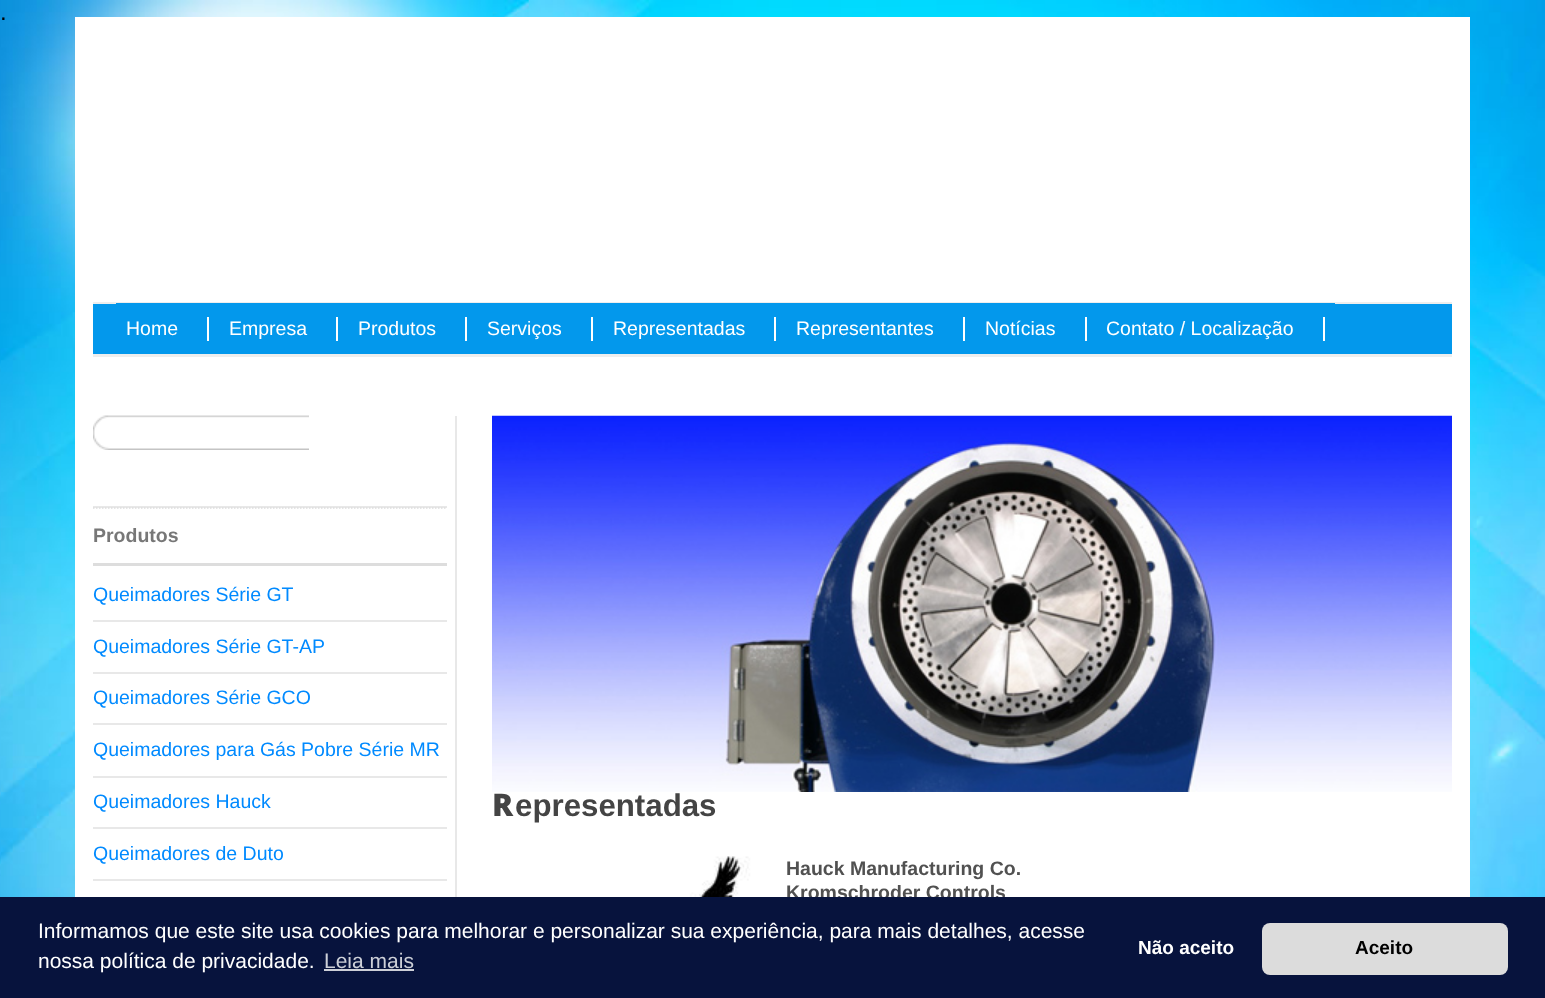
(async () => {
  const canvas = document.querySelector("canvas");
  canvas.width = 1545;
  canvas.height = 998;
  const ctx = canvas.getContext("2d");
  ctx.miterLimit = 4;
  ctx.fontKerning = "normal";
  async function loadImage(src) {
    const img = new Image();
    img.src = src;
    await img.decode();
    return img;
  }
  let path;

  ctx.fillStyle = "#ffffff";
  ctx.fillRect(0, 0, 1545, 998);
  ctx.drawImage(await loadImage("img/1.png"), 0, 0, 1545, 897);
  for (const [x, y, w, h, color] of [
    [75, 17, 1395, 880, "#ffffff"],
    [93, 304, 1359, 50, "#0398ec"],
    [93, 302, 1359, 2, "#eeeeee"],
    [93, 354, 1359, 3, "#eeeeee"],
    [116, 303, 1219, 1, "#0398ec"],
    [207, 317, 2, 24, "#ffffff"],
    [336, 317, 2, 24, "#ffffff"],
    [465, 317, 2, 24, "#ffffff"],
    [591, 317, 2, 24, "#ffffff"],
    [774, 317, 2, 24, "#ffffff"],
    [963, 317, 2, 24, "#ffffff"],
    [1085, 317, 2, 24, "#ffffff"],
    [1323, 317, 2, 24, "#ffffff"],
    [455, 416, 2, 481, "#e8e8e8"],
    [93, 506, 354, 2, "#e8e8e8"],
  ]) {
    ctx.fillStyle = color;
    ctx.fillRect(x, y, w, h);
  }
  ctx.drawImage(await loadImage("img/2.png"), 93, 415, 216, 35);
  path = new Path2D("M93 508H447");
  ctx.strokeStyle = "#dddddd";
  ctx.lineWidth = 1.5;
  ctx.setLineDash([1.5, 1.5]);
  ctx.stroke(path);
  for (const [x, y, w, h, color] of [
    [93, 563, 354, 3, "#dddddd"],
    [93, 620, 354, 2, "#e8e8e8"],
    [93, 672, 354, 2, "#e8e8e8"],
    [93, 723, 354, 2, "#e8e8e8"],
    [93, 776, 354, 2, "#e8e8e8"],
    [93, 827, 354, 2, "#e8e8e8"],
    [93, 879, 354, 2, "#e8e8e8"],
  ]) {
    ctx.fillStyle = color;
    ctx.fillRect(x, y, w, h);
  }
  ctx.drawImage(await loadImage("img/3.png"), 492, 415, 960, 377);
  ctx.drawImage(await loadImage("img/4.png"), 498, 856, 273, 41);
  ctx.font = "24px Liberation Sans";
  ctx.fillStyle = "#000000";
  ctx.fillText(".", 0, 20);
  ctx.font = "19.5px Liberation Sans";
  ctx.fillStyle = "#ffffff";
  for (const [text, x, y] of [
    ["Home", 126, 335],
    ["Empresa", 229, 335],
    ["Produtos", 358, 335],
    ["Serviços", 487, 335],
    ["Representadas", 613, 335],
    ["Representantes", 796, 335],
    ["Notícias", 985, 335],
    ["Contato / Localização", 1106, 335],
  ]) {
    ctx.fillText(text, x, y);
  }
  ctx.font = "bold 19.5px Liberation Sans";
  ctx.fillStyle = "#777777";
  ctx.fillText("Produtos", 93, 542);
  ctx.font = "19.5px Liberation Sans";
  ctx.fillStyle = "#008aff";
  for (const [text, x, y] of [
    ["Queimadores Série GT", 93, 601],
    ["Queimadores Série GT-AP", 93, 653],
    ["Queimadores Série GCO", 93, 704],
    ["Queimadores para Gás Pobre Série MR", 93, 756],
    ["Queimadores Hauck", 93, 808],
    ["Queimadores de Duto", 93, 860],
  ]) {
    ctx.fillText(text, x, y);
  }
  ctx.font = "900 31.25px Noto Sans";
  ctx.fillStyle = "#444444";
  ctx.fillText("R", 492, 816);
  ctx.font = "bold 31.25px Liberation Sans";
  ctx.fillText("epresentadas", 515, 816);
  ctx.font = "bold 19.5px Liberation Sans";
  ctx.fillStyle = "#515151";
  ctx.fillText("Hauck Manufacturing Co.", 786, 875);
  ctx.fillText("Kromschroder Controls", 786, 899);
  ctx.fillStyle = "#07133d";
  ctx.fillRect(0, 897, 1545, 101);
  ctx.font = "21px Liberation Sans";
  ctx.fillStyle = "#ffffff";
  ctx.fillText("Informamos que este site usa cookies para melhorar e personalizar sua experiência, para mais detalhes, acesse", 38, 938);
  ctx.fillText("nossa política de privacidade.", 38, 968);
  ctx.fillStyle = "#cdd0d8";
  ctx.fillText("Leia mais", 324, 968);
  ctx.fillRect(324, 969, 90, 2);
  ctx.font = "bold 19px Liberation Sans";
  ctx.fillStyle = "#ffffff";
  ctx.fillText("Não aceito", 1138, 954);
  ctx.fillStyle = "#dcdcdc";
  ctx.beginPath();
  ctx.roundRect(1262, 923, 246, 52, 8);
  ctx.fill();
  ctx.fillStyle = "#000000";
  ctx.fillText("Aceito", 1355, 954);
})();
